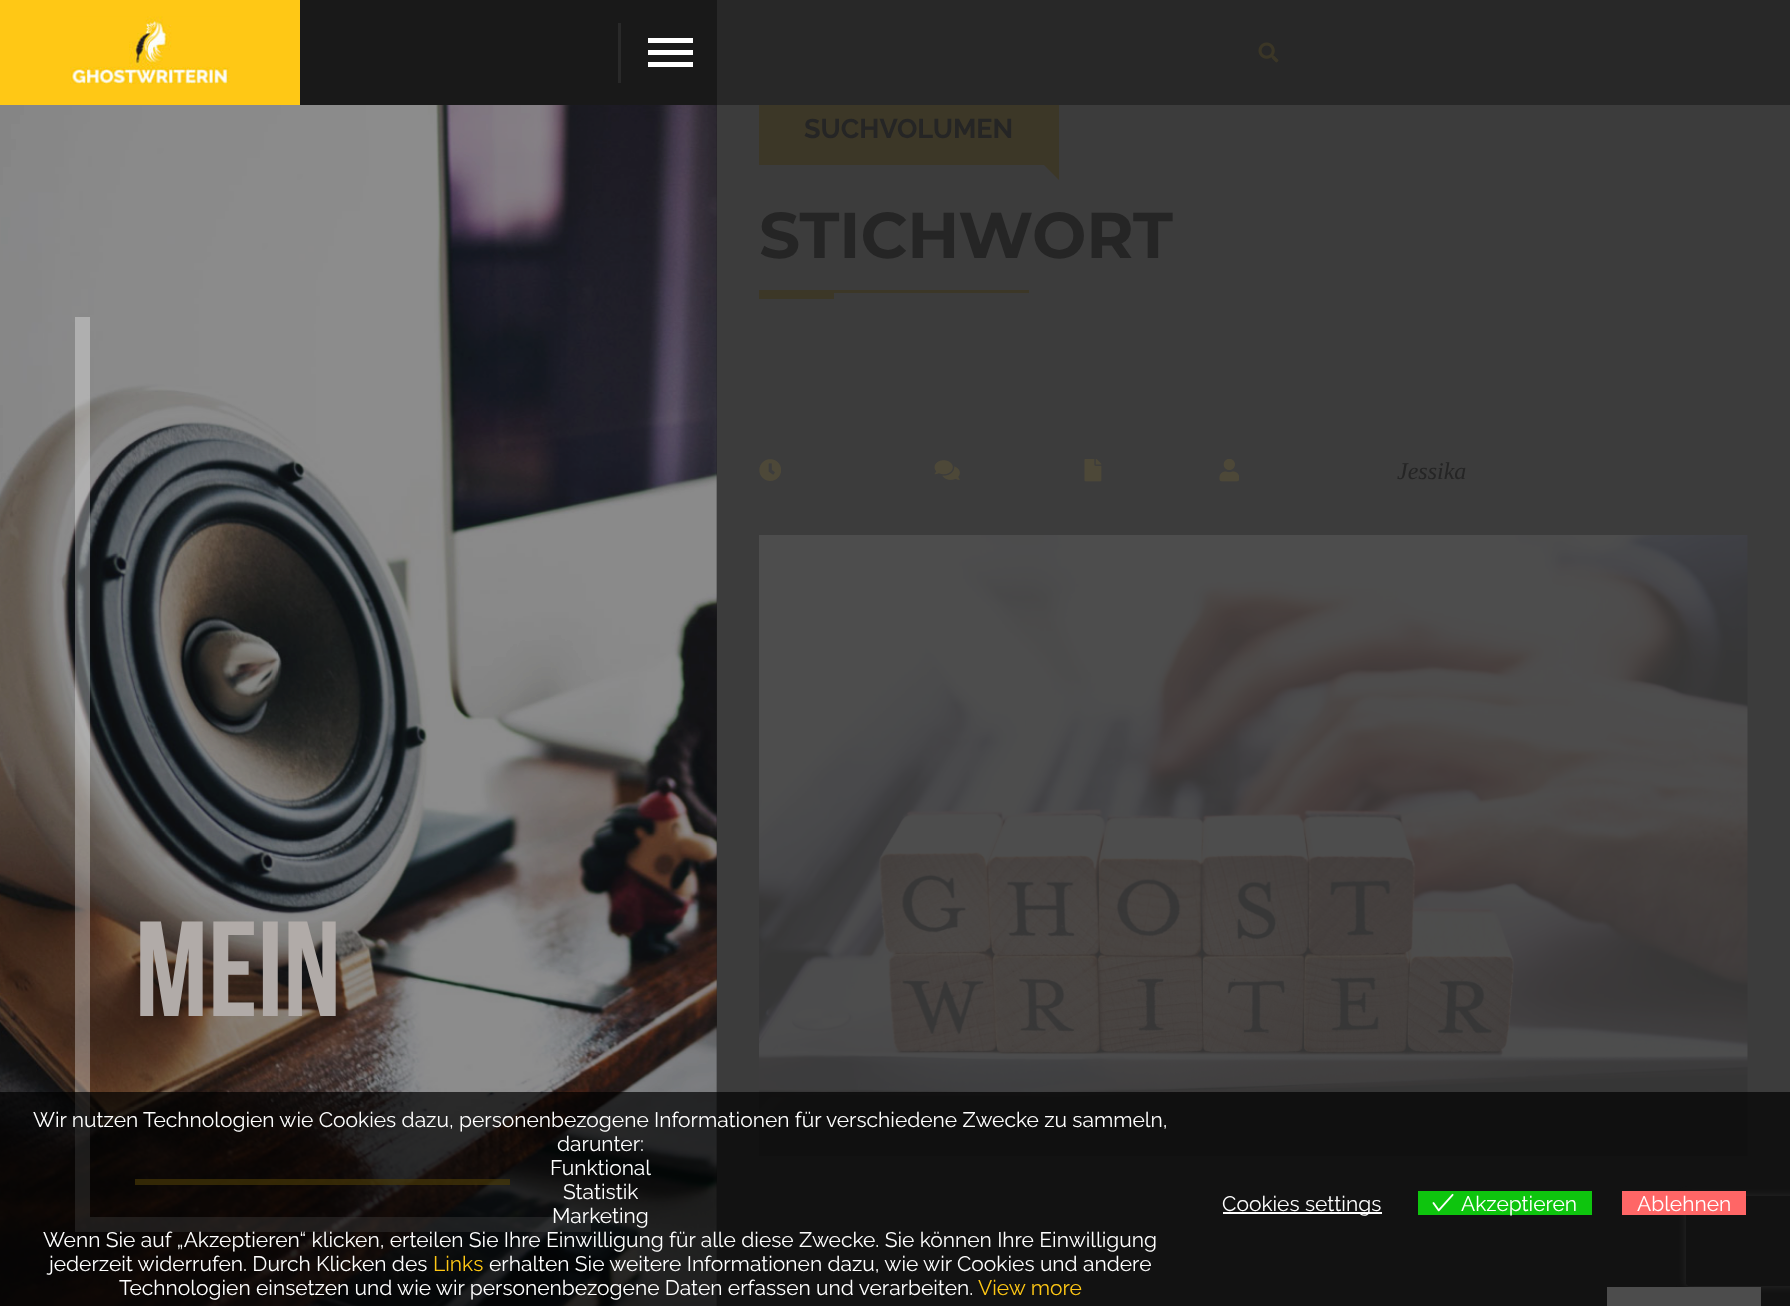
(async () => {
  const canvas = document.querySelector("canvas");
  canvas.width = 1790;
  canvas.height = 1306;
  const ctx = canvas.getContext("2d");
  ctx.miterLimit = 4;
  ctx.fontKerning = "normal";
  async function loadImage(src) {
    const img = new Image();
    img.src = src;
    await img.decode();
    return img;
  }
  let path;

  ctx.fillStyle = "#3c3c3c";
  ctx.fillRect(0, 0, 1790, 1306);
  for (const [x, y, w, h, color] of [
    [0, 105, 717, 1201, "#212121"],
    [300, 0, 417, 105, "#191919"],
    [0, 0, 300, 105, "#ffc815"],
  ]) {
    ctx.fillStyle = color;
    ctx.fillRect(x, y, w, h);
  }
  ctx.drawImage(await loadImage("img/1.png"), 70, 16, 160, 68);
  for (const [x, y, w, h, color] of [
    [618, 23, 3, 60, "#292929"],
    [648, 38, 45, 5, "#ffffff"],
    [648, 50, 45, 5, "#ffffff"],
    [648, 62, 45, 5, "#ffffff"],
    [717, 0, 1073, 105, "#282828"],
  ]) {
    ctx.fillStyle = color;
    ctx.fillRect(x, y, w, h);
  }
  ctx.drawImage(await loadImage("img/2.png"), 1258, 42, 21, 21);
  ctx.fillStyle = "#3c3727";
  ctx.fillRect(759, 105, 300, 60);
  path = new Path2D("M1059 165V180L1044 165Z");
  ctx.fill(path);
  ctx.fillRect(759, 290, 270, 3);
  ctx.fillRect(759, 293, 75, 6);
  ctx.drawImage(await loadImage("img/3.png"), 759, 459, 22, 22);
  ctx.drawImage(await loadImage("img/4.png"), 934, 460, 26, 20);
  ctx.drawImage(await loadImage("img/5.png"), 1084, 459, 18, 23);
  ctx.drawImage(await loadImage("img/6.png"), 1219, 459, 20, 23);
  ctx.drawImage(await loadImage("img/7.png"), 759, 535, 989, 621);
  ctx.drawImage(await loadImage("img/8.png"), 0, 105, 717, 1201);
  for (const [x, y, w, h, color] of [
    [75, 317, 15, 915, "rgba(255, 255, 255, 0.32)"],
    [135, 1179, 375, 6, "rgba(255, 200, 21, 0.62)"],
    [90, 1217, 501, 15, "rgba(255, 255, 255, 0.32)"],
  ]) {
    ctx.fillStyle = color;
    ctx.fillRect(x, y, w, h);
  }
  ctx.save();
  path = new Path2D("M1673 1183H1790V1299H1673ZM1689 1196H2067C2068.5 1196 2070 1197.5 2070 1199V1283C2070 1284.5 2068.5 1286 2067 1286H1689C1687.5 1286 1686 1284.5 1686 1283V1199C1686 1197.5 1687.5 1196 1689 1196Z");
  ctx.clip(path, "evenodd");
  ctx.fillStyle = "#8b8b8b";
  ctx.filter = "blur(4px)";
  ctx.beginPath();
  ctx.roundRect(1686, 1196, 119, 90, 3);
  ctx.fill();
  ctx.filter = "none";
  ctx.restore();
  for (const [x, y, w, h, color] of [
    [1607, 1287, 154, 19, "#ffffff"],
    [0, 1092, 1790, 214, "rgba(0, 0, 0, 0.7)"],
    [1223, 1212, 159, 2, "#ffffff"],
    [1418, 1191, 174, 24, "#0ec50e"],
  ]) {
    ctx.fillStyle = color;
    ctx.fillRect(x, y, w, h);
  }
  ctx.drawImage(await loadImage("img/9.png"), 1432, 1193, 22, 19);
  ctx.fillStyle = "#ff6666";
  ctx.fillRect(1622, 1191, 124, 24);
  ctx.font = "bold 27px Raleway";
  ctx.fillStyle = "#252525";
  ctx.fillText("SUCHVOLUMEN", 804, 138);
  ctx.font = "bold 64.5px Montserrat";
  ctx.fillText("STICHWORT", 759, 258);
  ctx.font = "italic 24px Liberation Serif";
  ctx.fillText("Jessika", 1397, 479);
  ctx.font = "bold 135px Bebas Neue";
  ctx.fillStyle = "#b1aba8";
  ctx.fillText("MEIN", 135, 1016);
  ctx.font = "21px Raleway";
  ctx.fillStyle = "#ffffff";
  for (const [text, x, y] of [
    ["Wir nutzen Technologien wie Cookies dazu, personenbezogene Informationen für verschiedene Zwecke zu sammeln,", 33, 1127],
    ["darunter:", 557, 1151],
    ["Funktional", 550, 1175],
    ["Statistik", 563, 1199],
    ["Marketing", 552, 1223],
    ["Wenn Sie auf „Akzeptieren“ klicken, erteilen Sie Ihre Einwilligung für alle diese Zwecke. Sie können Ihre Einwilligung", 43, 1247],
    ["jederzeit widerrufen. Durch Klicken des", 49, 1271],
  ]) {
    ctx.fillText(text, x, y);
  }
  ctx.fillStyle = "#ffc815";
  ctx.fillText("Links", 433, 1271);
  ctx.fillStyle = "#ffffff";
  ctx.fillText("erhalten Sie weitere Informationen dazu, wie wir Cookies und andere", 489, 1271);
  ctx.fillText("Technologien einsetzen und wie wir personenbezogene Daten erfassen und verarbeiten.", 119, 1295);
  ctx.fillStyle = "#ffc815";
  ctx.fillText("View more", 978, 1295);
  ctx.fillStyle = "#ffffff";
  for (const [text, x, y] of [
    ["Cookies settings", 1222, 1211],
    ["Akzeptieren", 1461, 1211],
    ["Ablehnen", 1637, 1211],
  ]) {
    ctx.fillText(text, x, y);
  }
})();
